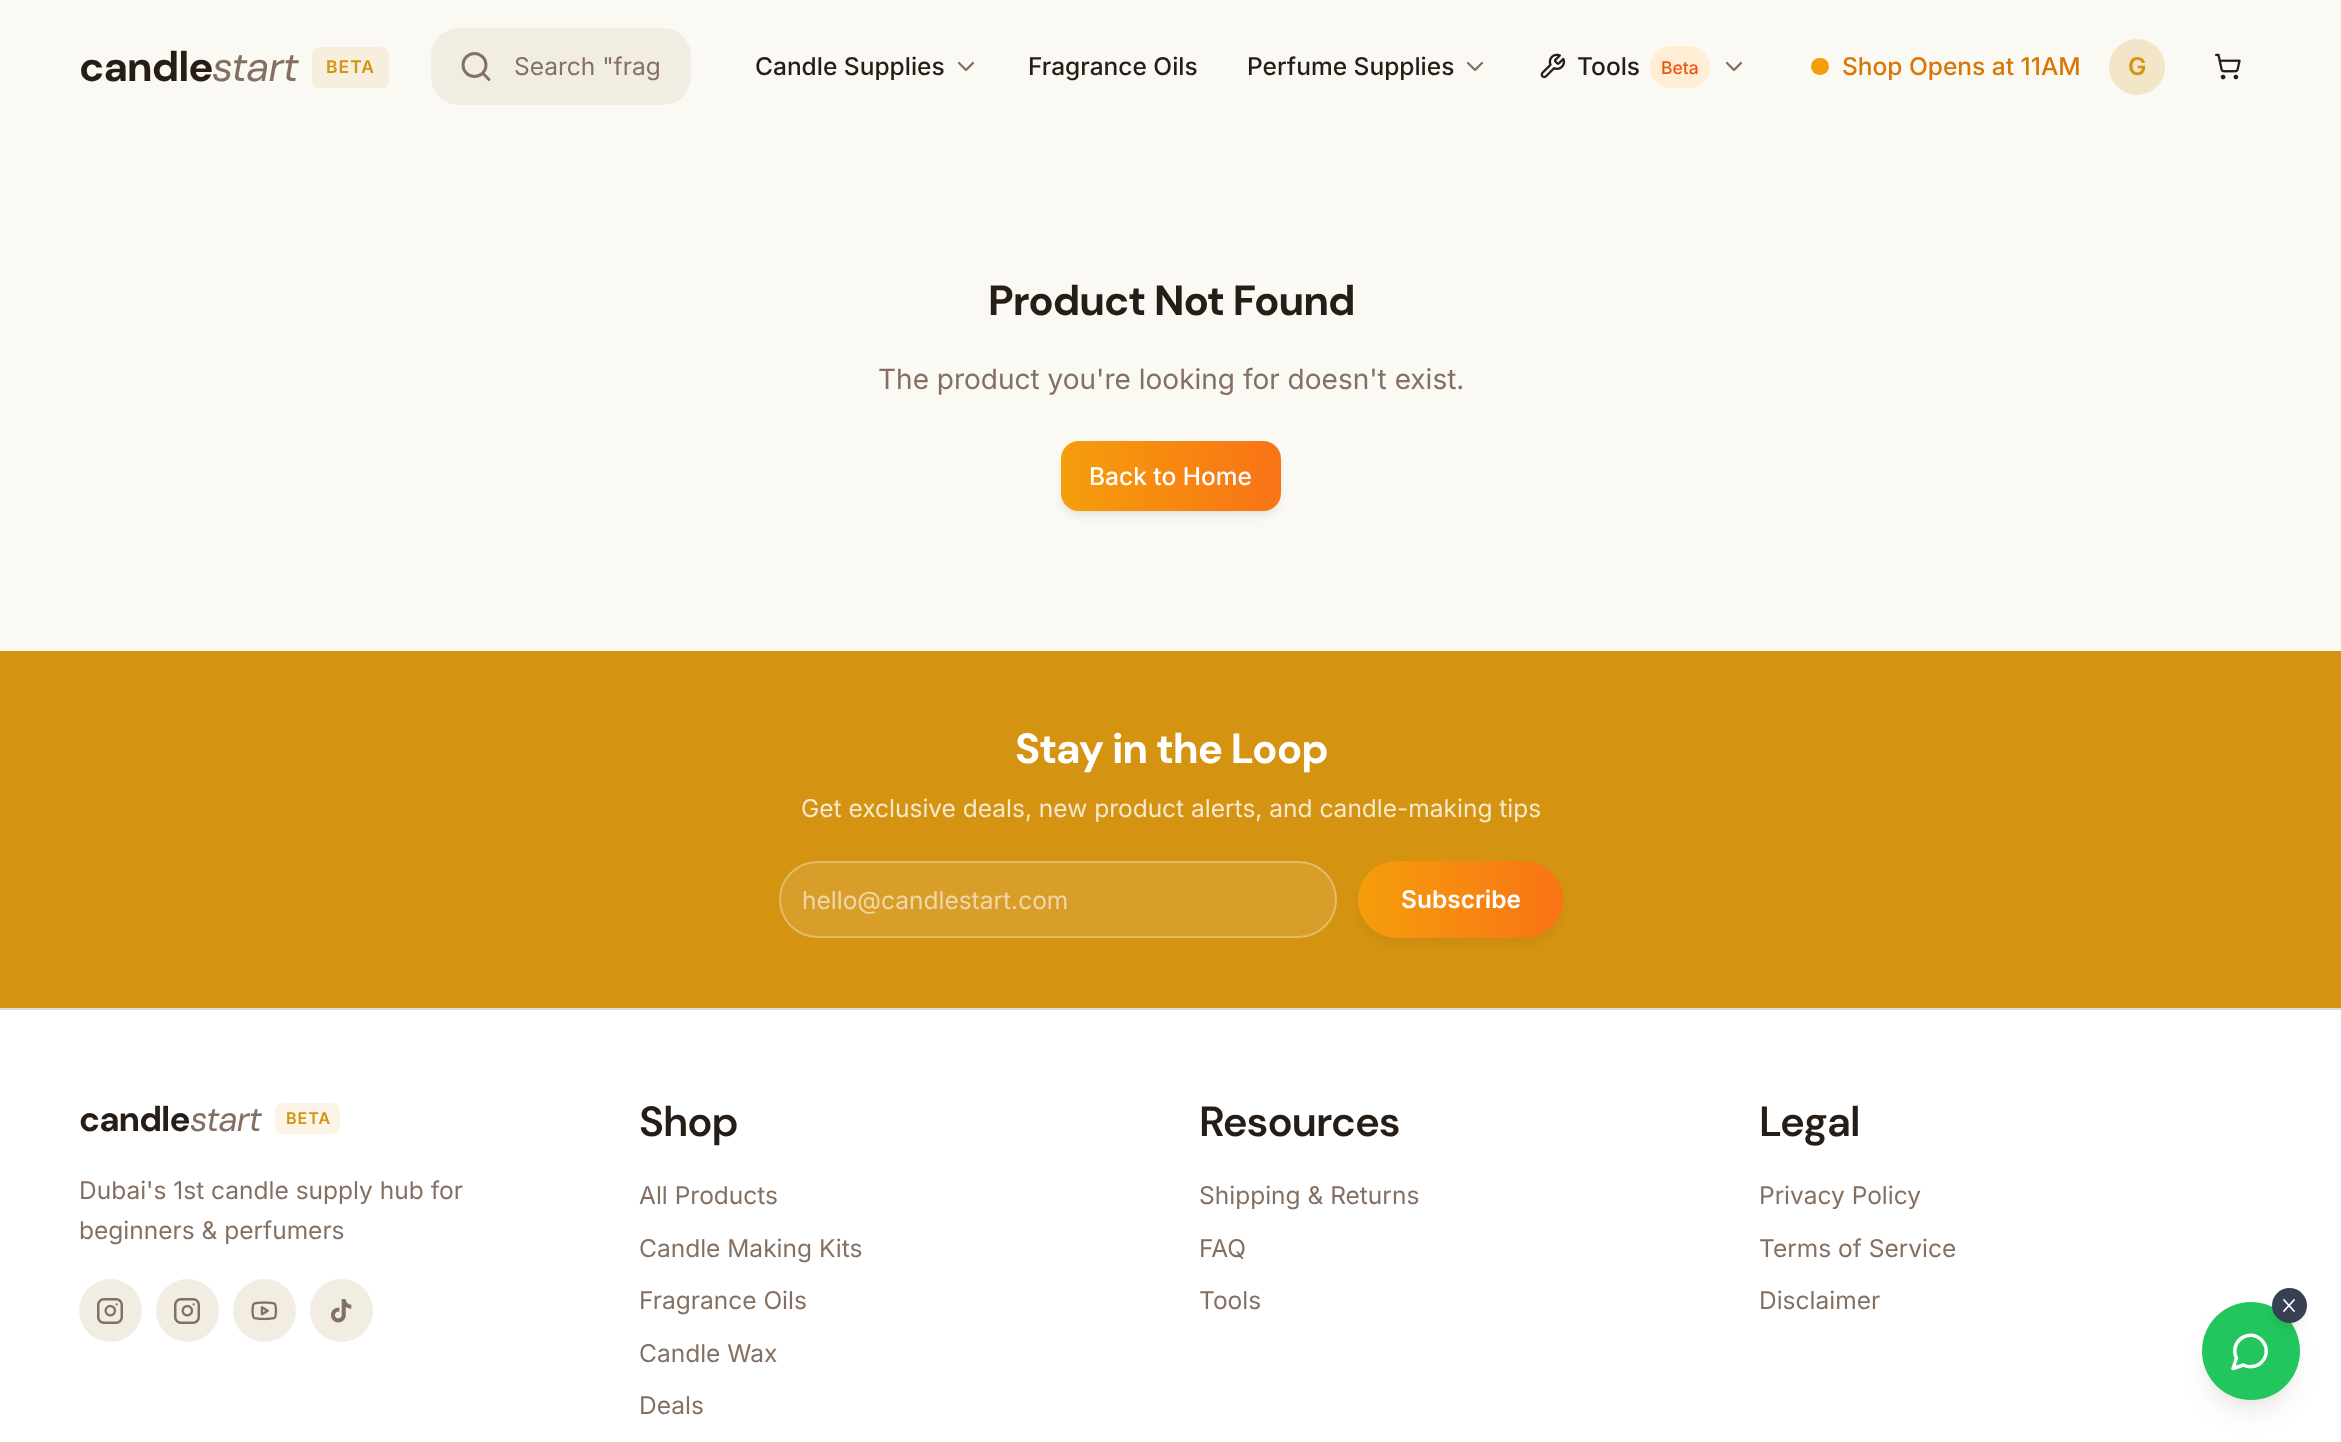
(async () => {
  const canvas = document.querySelector("canvas");
  canvas.width = 2341;
  canvas.height = 1442;
  const ctx = canvas.getContext("2d");
  ctx.miterLimit = 4;
  ctx.fontKerning = "normal";
  async function loadImage(src) {
    const img = new Image();
    img.src = src;
    await img.decode();
    return img;
  }
  let gradient, path;

  ctx.fillStyle = "#faf9f4";
  ctx.fillRect(0, 0, 2341, 1442);
  ctx.fillStyle = "#f6efdd";
  ctx.beginPath();
  ctx.roundRect(312, 47, 77, 41, 7);
  ctx.fill();
  ctx.fillStyle = "#f2ede3";
  ctx.beginPath();
  ctx.roundRect(431, 28, 260, 77, 28);
  ctx.fill();
  ctx.beginPath();
  ctx.arc(474.5, 65, 11.5, 0, Math.PI * 2);
  ctx.strokeStyle = "#847062";
  ctx.lineWidth = 2.9;
  ctx.stroke();
  path = new Path2D("M489 79.5L483 73.5");
  ctx.lineCap = "round";
  ctx.lineJoin = "round";
  ctx.stroke(path);
  path = new Path2D("M959 63L966 70L973 63");
  ctx.lineWidth = 2.3;
  ctx.stroke(path);
  path = new Path2D("M1468 63L1475 70L1482 63");
  ctx.stroke(path);
  ctx.drawImage(await loadImage("img/1.png"), 1540, 53, 26, 26);
  ctx.fillStyle = "#ffedd5";
  ctx.beginPath();
  ctx.roundRect(1650, 46, 60, 42, 21);
  ctx.fill();
  path = new Path2D("M1727 63L1734 70L1741 63");
  ctx.stroke(path);
  ctx.fillStyle = "#f59e0b";
  ctx.beginPath();
  ctx.roundRect(1811, 58, 18, 17, 8.5);
  ctx.fill();
  ctx.fillStyle = "#f6efdd";
  ctx.beginPath();
  ctx.arc(2137, 67, 28, 0, Math.PI * 2);
  ctx.fill();
  ctx.fillStyle = "rgba(212, 147, 17, 0.1)";
  ctx.beginPath();
  ctx.arc(2137, 67, 28, 0, Math.PI * 2);
  ctx.fill();
  ctx.drawImage(await loadImage("img/2.png"), 2215, 53, 26, 27);
  ctx.fillStyle = "rgba(61, 51, 41, 0.06)";
  ctx.filter = "blur(3.5px)";
  ctx.beginPath();
  ctx.roundRect(1064, 448, 214, 63, 14);
  ctx.fill();
  ctx.filter = "none";
  ctx.fillStyle = "rgba(61, 51, 41, 0.08)";
  ctx.filter = "blur(5px)";
  ctx.beginPath();
  ctx.roundRect(1062, 450, 217, 66, 16);
  ctx.fill();
  ctx.filter = "none";
  gradient = ctx.createLinearGradient(1061, 476, 1281, 476);
  gradient.addColorStop(0, "#f59e0b");
  gradient.addColorStop(1, "#f97316");
  ctx.fillStyle = gradient;
  ctx.beginPath();
  ctx.roundRect(1061, 441, 220, 70, 18);
  ctx.fill();
  ctx.fillStyle = "#d49311";
  ctx.fillRect(0, 651, 2341, 357);
  ctx.fillStyle = "#d89e29";
  ctx.beginPath();
  ctx.roundRect(779, 861, 558, 77, 38.5);
  ctx.fill();
  ctx.beginPath();
  ctx.roundRect(780, 862, 556, 75, 37.5);
  ctx.strokeStyle = "rgba(255, 255, 255, 0.3)";
  ctx.lineWidth = 2;
  ctx.lineJoin = "miter";
  ctx.stroke();
  ctx.fillStyle = "rgba(61, 51, 41, 0.08)";
  ctx.filter = "blur(5px)";
  ctx.beginPath();
  ctx.roundRect(1360, 870, 201, 73, 36.5);
  ctx.fill();
  ctx.filter = "none";
  gradient = ctx.createLinearGradient(1358, 900, 1563, 900);
  gradient.addColorStop(0, "#f59e0b");
  gradient.addColorStop(1, "#f97316");
  ctx.fillStyle = gradient;
  ctx.beginPath();
  ctx.roundRect(1358, 861, 205, 77, 38.5);
  ctx.fill();
  ctx.fillStyle = "#ffffff";
  ctx.fillRect(0, 1010, 2341, 432);
  ctx.fillStyle = "#e0dad1";
  ctx.fillRect(0, 1008, 2341, 2);
  ctx.fillStyle = "#fbf4e7";
  ctx.beginPath();
  ctx.roundRect(275, 1103, 65, 31, 7);
  ctx.fill();
  ctx.fillStyle = "#f2ede3";
  ctx.beginPath();
  ctx.arc(110.5, 1310.5, 31.5, 0, Math.PI * 2);
  ctx.fill();
  ctx.drawImage(await loadImage("img/3.png"), 97, 1298, 26, 26);
  ctx.beginPath();
  ctx.arc(187.5, 1310.5, 31.5, 0, Math.PI * 2);
  ctx.fill();
  ctx.drawImage(await loadImage("img/3.png"), 174, 1298, 26, 26);
  ctx.beginPath();
  ctx.arc(264.5, 1310.5, 31.5, 0, Math.PI * 2);
  ctx.fill();
  ctx.drawImage(await loadImage("img/4.png"), 251, 1301, 27, 20);
  ctx.beginPath();
  ctx.arc(341.5, 1310.5, 31.5, 0, Math.PI * 2);
  ctx.fill();
  ctx.drawImage(await loadImage("img/5.png"), 331, 1299, 21, 24);
  ctx.fillStyle = "rgba(61, 51, 41, 0.08)";
  ctx.filter = "blur(5px)";
  ctx.beginPath();
  ctx.roundRect(2209, 1316, 84, 84, 42);
  ctx.fill();
  ctx.filter = "none";
  ctx.fillStyle = "rgba(61, 51, 41, 0.1)";
  ctx.filter = "blur(13px)";
  ctx.beginPath();
  ctx.roundRect(2207, 1325, 87, 87, 43.5);
  ctx.fill();
  ctx.filter = "none";
  ctx.fillStyle = "#22c55e";
  ctx.beginPath();
  ctx.arc(2251, 1351, 49, 0, Math.PI * 2);
  ctx.fill();
  path = new Path2D("M2243.5 1365C2250 1368.5 2258.5 1366.5 2263 1360.5C2268 1354 2267 1345.5 2261.5 1340C2256 1334.5 2247.5 1333.5 2241 1338.5C2235 1343 2233 1351.5 2236.5 1358L2233 1368.5Z");
  ctx.strokeStyle = "#ffffff";
  ctx.lineWidth = 3.5;
  ctx.lineJoin = "round";
  ctx.stroke(path);
  ctx.fillStyle = "rgba(61, 51, 41, 0.06)";
  ctx.filter = "blur(3.5px)";
  ctx.beginPath();
  ctx.roundRect(2275, 1295, 28, 28, 14);
  ctx.fill();
  ctx.filter = "none";
  ctx.fillStyle = "rgba(61, 51, 41, 0.08)";
  ctx.filter = "blur(5px)";
  ctx.beginPath();
  ctx.roundRect(2273, 1297, 32, 31, 15.5);
  ctx.fill();
  ctx.filter = "none";
  ctx.fillStyle = "#374151";
  ctx.beginPath();
  ctx.arc(2289.5, 1305.5, 17.5, 0, Math.PI * 2);
  ctx.fill();
  path = new Path2D("M2294 1300L2284 1311M2284 1300L2294 1311");
  ctx.lineWidth = 1.8;
  ctx.stroke(path);
  ctx.letterSpacing = "-1px";
  ctx.font = "bold 42px DM Sans";
  ctx.fillStyle = "#261d17";
  ctx.fillText("candle", 79, 81);
  ctx.font = "italic 42px 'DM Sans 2'";
  ctx.fillStyle = "#847062";
  ctx.fillText("start", 212, 81);
  ctx.letterSpacing = "1px";
  ctx.font = "600 17.5px Inter";
  ctx.fillStyle = "#d49311";
  ctx.fillText("BETA", 326, 73);
  ctx.letterSpacing = "0px";
  ctx.font = "24.5px Inter";
  ctx.fillStyle = "#847062";
  ctx.fillText("Search \"frag", 514, 75);
  ctx.font = "500 24.5px Inter";
  ctx.fillStyle = "#261d17";
  for (const [text, x, y] of [
    ["Candle Supplies", 755, 75],
    ["Fragrance Oils", 1028, 75],
    ["Perfume Supplies", 1247, 75],
    ["Tools", 1577, 75],
  ]) {
    ctx.fillText(text, x, y);
  }
  ctx.font = "500 17.5px Inter";
  ctx.fillStyle = "#ea580c";
  ctx.fillText("Beta", 1661, 74);
  ctx.font = "500 24.5px Inter";
  ctx.fillStyle = "#d97706";
  ctx.fillText("Shop Opens at 11AM", 1842, 75);
  ctx.font = "600 24.5px Inter";
  ctx.fillStyle = "#d49311";
  ctx.fillText("G", 2128, 75);
  ctx.letterSpacing = "-1px";
  ctx.font = "bold 42px DM Sans";
  ctx.fillStyle = "#261d17";
  ctx.fillText("Product Not Found", 988, 315);
  ctx.letterSpacing = "0px";
  ctx.font = "28px Inter";
  ctx.fillStyle = "#847062";
  ctx.fillText("The product you're looking for doesn't exist.", 878, 389);
  ctx.font = "500 24.5px Inter";
  ctx.fillStyle = "#ffffff";
  ctx.fillText("Back to Home", 1089, 485);
  ctx.letterSpacing = "-1px";
  ctx.font = "bold 42px DM Sans";
  ctx.fillText("Stay in the Loop", 1015, 763);
  ctx.letterSpacing = "0px";
  ctx.font = "24.5px Inter";
  ctx.fillStyle = "#f6e9cf";
  ctx.fillText("Get exclusive deals, new product alerts, and candle-making tips", 801, 817);
  ctx.fillStyle = "#efd8a9";
  ctx.fillText("hello@candlestart.com", 802, 909);
  ctx.font = "600 24.5px Inter";
  ctx.fillStyle = "#ffffff";
  ctx.fillText("Subscribe", 1401, 908);
  ctx.letterSpacing = "-1px";
  ctx.font = "bold 35px 'DM Sans 2'";
  ctx.fillStyle = "#261d17";
  ctx.fillText("candle", 79, 1131);
  ctx.font = "italic 35px DM Sans";
  ctx.fillStyle = "#847062";
  ctx.fillText("start", 190, 1131);
  ctx.letterSpacing = "1px";
  ctx.font = "600 16px Inter";
  ctx.fillStyle = "#d49311";
  ctx.fillText("BETA", 286, 1124);
  ctx.letterSpacing = "0px";
  ctx.font = "24.5px Inter";
  ctx.fillStyle = "#847062";
  ctx.fillText("Dubai's 1st candle supply hub for", 79, 1199);
  ctx.fillText("beginners & perfumers", 79, 1239);
  ctx.letterSpacing = "-1px";
  ctx.font = "600 42px DM Sans";
  ctx.fillStyle = "#261d17";
  ctx.fillText("Shop", 639, 1136);
  ctx.letterSpacing = "0px";
  ctx.font = "24.5px Inter";
  ctx.fillStyle = "#847062";
  for (const [text, x, y] of [
    ["All Products", 639, 1204],
    ["Candle Making Kits", 639, 1257],
    ["Fragrance Oils", 639, 1309],
    ["Candle Wax", 639, 1362],
    ["Deals", 639, 1414],
  ]) {
    ctx.fillText(text, x, y);
  }
  ctx.letterSpacing = "-1px";
  ctx.font = "600 42px DM Sans";
  ctx.fillStyle = "#261d17";
  ctx.fillText("Resources", 1199, 1136);
  ctx.letterSpacing = "0px";
  ctx.font = "24.5px Inter";
  ctx.fillStyle = "#847062";
  for (const [text, x, y] of [
    ["Shipping & Returns", 1199, 1204],
    ["FAQ", 1199, 1257],
    ["Tools", 1199, 1309],
  ]) {
    ctx.fillText(text, x, y);
  }
  ctx.letterSpacing = "-1px";
  ctx.font = "600 42px DM Sans";
  ctx.fillStyle = "#261d17";
  ctx.fillText("Legal", 1759, 1136);
  ctx.letterSpacing = "0px";
  ctx.font = "24.5px Inter";
  ctx.fillStyle = "#847062";
  for (const [text, x, y] of [
    ["Privacy Policy", 1759, 1204],
    ["Terms of Service", 1759, 1257],
    ["Disclaimer", 1759, 1309],
  ]) {
    ctx.fillText(text, x, y);
  }
})();
